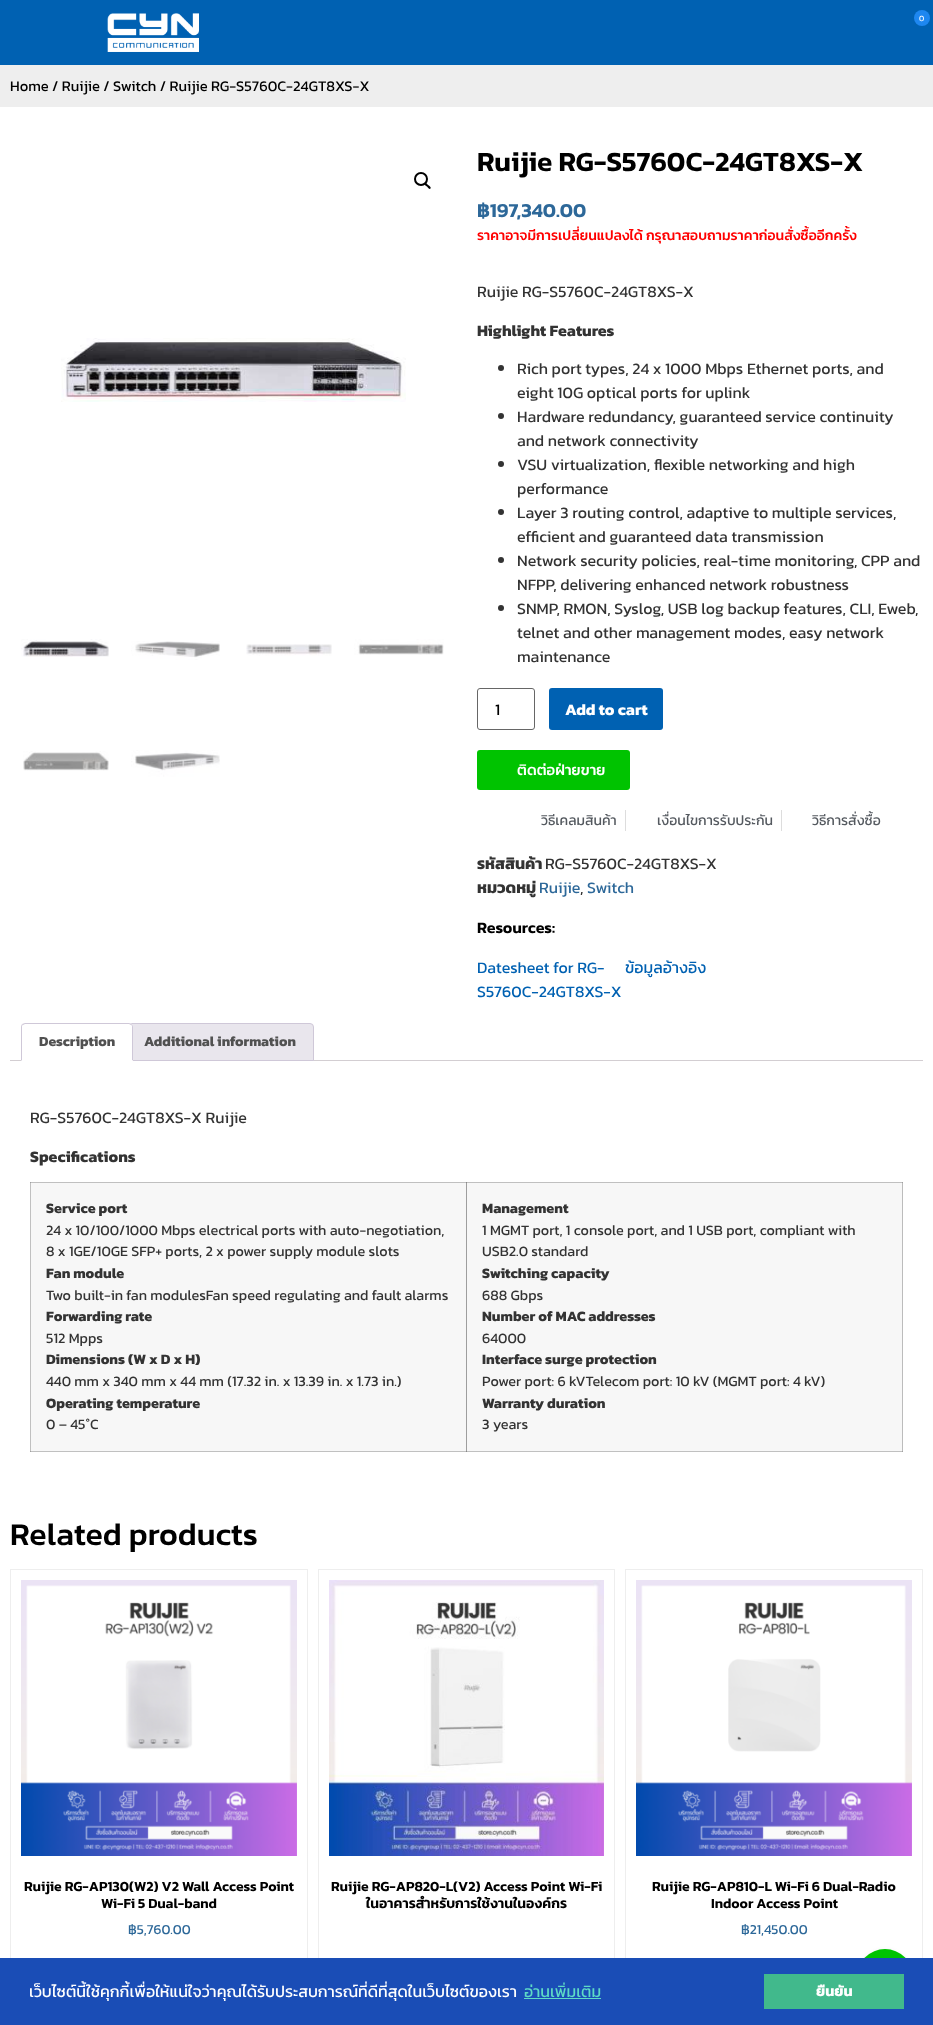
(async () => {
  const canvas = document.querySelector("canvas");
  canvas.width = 933;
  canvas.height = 2025;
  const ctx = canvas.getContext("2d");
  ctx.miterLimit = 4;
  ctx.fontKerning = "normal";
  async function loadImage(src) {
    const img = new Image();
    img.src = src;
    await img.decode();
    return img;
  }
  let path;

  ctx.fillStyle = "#ffffff";
  ctx.fillRect(0, 0, 933, 2025);
  for (const [x, y, w, h, color] of [
    [30, 1182, 1, 270, "#c0c0c0"],
    [30, 1451, 873, 1, "#c0c0c0"],
    [30, 1451, 1, 1, "#a0a0a0"],
    [30, 1182, 873, 1, "#c0c0c0"],
    [30, 1182, 1, 1, "#a0a0a0"],
    [466, 1451, 1, 1, "#888888"],
    [902, 1451, 1, 1, "#a0a0a0"],
    [0, 0, 933, 65, "#0061b2"],
  ]) {
    ctx.fillStyle = color;
    ctx.fillRect(x, y, w, h);
  }
  ctx.drawImage(await loadImage("img/1.png"), 107, 13, 92, 39);
  ctx.fillStyle = "#1e87f0";
  ctx.beginPath();
  ctx.arc(922, 18, 8, 0, Math.PI * 2);
  ctx.fill();
  ctx.fillStyle = "#eeeeee";
  ctx.fillRect(0, 65, 933, 42);
  ctx.beginPath();
  ctx.arc(421, 179, 6, 0, Math.PI * 2);
  ctx.strokeStyle = "#000000";
  ctx.lineWidth = 2;
  ctx.stroke();
  ctx.fillStyle = "#000000";
  path = new Path2D("M424.5 183C426 182 427.5 184.5 428 185C429 185.5 431.5 187.5 430.5 188.5C429 190 427.5 187 427 186.5C426 186 423.5 184 424.5 183Z");
  ctx.fill(path);
  ctx.drawImage(await loadImage("img/2.png"), 61, 338, 345, 64);
  ctx.drawImage(await loadImage("img/3.png"), 21, 639, 88, 18);
  ctx.drawImage(await loadImage("img/4.png"), 131, 641, 89, 19);
  ctx.drawImage(await loadImage("img/5.png"), 246, 644, 86, 12);
  ctx.drawImage(await loadImage("img/6.png"), 354, 639, 90, 16);
  ctx.drawImage(await loadImage("img/7.png"), 23, 751, 86, 20);
  ctx.drawImage(await loadImage("img/8.png"), 131, 750, 89, 27);
  ctx.fillStyle = "#333333";
  ctx.beginPath();
  ctx.arc(501, 368, 3, 0, Math.PI * 2);
  ctx.fill();
  ctx.beginPath();
  ctx.arc(501, 416, 3, 0, Math.PI * 2);
  ctx.fill();
  ctx.beginPath();
  ctx.arc(501, 464, 3, 0, Math.PI * 2);
  ctx.fill();
  ctx.beginPath();
  ctx.arc(501, 512, 3, 0, Math.PI * 2);
  ctx.fill();
  ctx.beginPath();
  ctx.arc(501, 560, 3, 0, Math.PI * 2);
  ctx.fill();
  ctx.beginPath();
  ctx.arc(501, 608, 3, 0, Math.PI * 2);
  ctx.fill();
  ctx.beginPath();
  ctx.roundRect(477.5, 688.5, 57, 41, 2.5);
  ctx.strokeStyle = "#666666";
  ctx.lineWidth = 1;
  ctx.stroke();
  ctx.fillStyle = "#0061b2";
  ctx.beginPath();
  ctx.roundRect(549, 688, 114, 42, 3);
  ctx.fill();
  ctx.fillStyle = "#00c300";
  ctx.beginPath();
  ctx.roundRect(477, 750, 153, 40, 3);
  ctx.fill();
  for (const [x, y, w, h, color] of [
    [625, 810, 1, 21, "#dddddd"],
    [781, 810, 1, 21, "#dddddd"],
    [10, 1060, 913, 1, "#d3ced2"],
  ]) {
    ctx.fillStyle = color;
    ctx.fillRect(x, y, w, h);
  }
  ctx.fillStyle = "#e9e6ed";
  ctx.beginPath();
  ctx.roundRect(127.5, 1023.5, 186, 37, [3.5, 3.5, 0, 0]);
  ctx.fill();
  ctx.strokeStyle = "#cfc8d8";
  ctx.stroke();
  ctx.fillStyle = "#ffffff";
  ctx.beginPath();
  ctx.roundRect(21, 1023, 112, 38, [4, 4, 0, 0]);
  ctx.fill();
  ctx.fillStyle = "#cfc8d8";
  path = new Path2D("M25 1023L22 1024L23 1025L25 1024H129L131 1025L132 1024L129 1023Z");
  ctx.fill(path);
  path = new Path2D("M133 1061V1027C133 1026 132.5 1025 132 1024L131 1025C132 1025 132 1026 132 1027V1060Z");
  ctx.fill(path);
  ctx.fillStyle = "#ffffff";
  path = new Path2D("M133 1061L132 1060H22L21 1061Z");
  ctx.fill(path);
  ctx.fillStyle = "#cfc8d8";
  path = new Path2D("M21 1061L22 1060V1027C22 1026 22 1025 23 1025L22 1024C21.5 1025 21 1026 21 1027Z");
  ctx.fill(path);
  for (const [x, y, w, h, color] of [
    [31, 1183, 435, 268, "#f7f7f7"],
    [466, 1183, 1, 268, "#9e9e9e"],
    [467, 1183, 435, 268, "#f7f7f7"],
    [902, 1183, 1, 268, "#bcbcbc"],
    [466, 1182, 1, 1, "#888888"],
    [902, 1182, 1, 1, "#a0a0a0"],
  ]) {
    ctx.fillStyle = color;
    ctx.fillRect(x, y, w, h);
  }
  ctx.strokeStyle = "#eeeeee";
  ctx.strokeRect(10.5, 1569.5, 297, 433);
  ctx.drawImage(await loadImage("img/9.png"), 21, 1580, 276, 276);
  ctx.strokeRect(318.5, 1569.5, 296, 433);
  ctx.drawImage(await loadImage("img/10.png"), 329, 1580, 275, 276);
  ctx.strokeRect(625.5, 1569.5, 297, 433);
  ctx.drawImage(await loadImage("img/11.png"), 636, 1580, 276, 276);
  ctx.fillStyle = "rgba(0, 0, 0, 0.11)";
  ctx.filter = "blur(2.5px)";
  ctx.beginPath();
  ctx.roundRect(857, 1951, 56, 56, 28);
  ctx.fill();
  ctx.filter = "none";
  ctx.fillStyle = "#00c300";
  ctx.beginPath();
  ctx.arc(885, 1977, 28, 0, Math.PI * 2);
  ctx.fill();
  for (const [x, y, w, h, color] of [
    [0, 1958, 933, 67, "#1a4db6"],
    [524, 1998, 77, 1, "#5edbc5"],
    [764, 1974, 140, 35, "#41b98c"],
  ]) {
    ctx.fillStyle = color;
    ctx.fillRect(x, y, w, h);
  }
  ctx.font = "8px Kanit";
  ctx.fillStyle = "#ffffff";
  ctx.fillText("0", 919, 21);
  ctx.font = "14.75px Kanit";
  ctx.fillStyle = "#000000";
  ctx.fillText("Home / Ruijie / Switch / Ruijie RG-S5760C-24GT8XS-X", 10, 91);
  ctx.font = "600 28px Kanit";
  ctx.fillText("Ruijie RG-S5760C-24GT8XS-X", 477, 171);
  ctx.font = "600 20px Kanit";
  ctx.fillStyle = "#2d6899";
  ctx.fillText("฿197,340.00", 477, 217);
  ctx.font = "500 14px Kanit";
  ctx.fillStyle = "#ff0000";
  ctx.fillText("ราคาอาจมีการเปลี่ยนแปลงได้ กรุณาสอบถามราคาก่อนสั่งซื้ออีกครั้ง", 477, 240);
  ctx.font = "16px Kanit";
  ctx.fillStyle = "#333333";
  ctx.fillText("Ruijie RG-S5760C-24GT8XS-X", 477, 297);
  ctx.font = "bold 16px Kanit";
  ctx.fillText("Highlight Features", 477, 336);
  ctx.font = "16px Kanit";
  for (const [text, x, y] of [
    ["Rich port types, 24 x 1000 Mbps Ethernet ports, and", 517, 374],
    ["eight 10G optical ports for uplink", 517, 398],
    ["Hardware redundancy, guaranteed service continuity", 517, 422],
    ["and network connectivity", 517, 446],
    ["VSU virtualization, flexible networking and high", 517, 470],
    ["performance", 517, 494],
    ["Layer 3 routing control, adaptive to multiple services,", 517, 518],
    ["efficient and guaranteed data transmission", 517, 542],
    ["Network security policies, real-time monitoring, CPP and", 517, 566],
    ["NFPP, delivering enhanced network robustness", 517, 590],
    ["SNMP, RMON, Syslog, USB log backup features, CLI, Eweb,", 517, 614],
    ["telnet and other management modes, easy network", 517, 638],
    ["maintenance", 517, 662],
  ]) {
    ctx.fillText(text, x, y);
  }
  ctx.fillStyle = "#000000";
  ctx.fillText("1", 495, 715);
  ctx.font = "bold 16px Kanit";
  ctx.fillStyle = "#ffffff";
  ctx.fillText("Add to cart", 565, 715);
  ctx.font = "500 15px Kanit";
  ctx.fillText("ติดต่อฝ่ายขาย", 517, 775);
  ctx.font = "14px Kanit";
  ctx.fillStyle = "#54595f";
  for (const [text, x, y] of [
    ["วิธีเคลมสินค้า", 541, 825],
    ["เงื่อนไขการรับประกัน", 657, 825],
    ["วิธีการสั่งซื้อ", 812, 825],
  ]) {
    ctx.fillText(text, x, y);
  }
  ctx.font = "bold 16px Kanit";
  ctx.fillStyle = "#333333";
  ctx.fillText("รหัสสินค้า", 477, 869);
  ctx.font = "16px Kanit";
  ctx.fillText("RG-S5760C-24GT8XS-X", 545, 869);
  ctx.font = "bold 16px Kanit";
  ctx.fillText("หมวดหมู่", 477, 893);
  ctx.font = "16px Kanit";
  ctx.fillStyle = "#2d6899";
  ctx.fillText("Ruijie", 539, 893);
  ctx.fillStyle = "#333333";
  ctx.fillText(",", 580, 893);
  ctx.fillStyle = "#2d6899";
  ctx.fillText("Switch", 587, 893);
  ctx.font = "600 16px Kanit";
  ctx.fillStyle = "#000000";
  ctx.fillText("Resources:", 477, 933);
  ctx.font = "16px Kanit";
  ctx.fillStyle = "#0061b2";
  for (const [text, x, y] of [
    ["Datesheet for RG-", 477, 973],
    ["S5760C-24GT8XS-X", 477, 997],
    ["ข้อมูลอ้างอิง", 625, 973],
  ]) {
    ctx.fillText(text, x, y);
  }
  ctx.font = "bold 14px Kanit";
  ctx.fillStyle = "#515151";
  ctx.fillText("Description", 39, 1046);
  ctx.fillText("Additional information", 144, 1046);
  ctx.font = "16px Kanit";
  ctx.fillStyle = "#333333";
  ctx.fillText("RG-S5760C-24GT8XS-X Ruijie", 30, 1123);
  ctx.font = "bold 16px Kanit";
  ctx.fillText("Specifications", 30, 1162);
  ctx.font = "bold 14.4px Kanit";
  ctx.fillText("Service port", 46, 1213);
  ctx.font = "14.4px Kanit";
  ctx.fillText("24 x 10/100/1000 Mbps electrical ports with auto-negotiation,", 46, 1235);
  ctx.fillText("8 x 1GE/10GE SFP+ ports, 2 x power supply module slots", 46, 1256);
  ctx.font = "bold 14.4px Kanit";
  ctx.fillText("Fan module", 46, 1278);
  ctx.font = "14.4px Kanit";
  ctx.fillText("Two built-in fan modulesFan speed regulating and fault alarms", 46, 1300);
  ctx.font = "bold 14.4px Kanit";
  ctx.fillText("Forwarding rate", 46, 1321);
  ctx.font = "14.4px Kanit";
  ctx.fillText("512 Mpps", 46, 1343);
  ctx.font = "bold 14.4px Kanit";
  ctx.fillText("Dimensions (W x D x H)", 46, 1364);
  ctx.font = "14.4px Kanit";
  ctx.fillText("440 mm x 340 mm x 44 mm (17.32 in. x 13.39 in. x 1.73 in.)", 46, 1386);
  ctx.font = "bold 14.4px Kanit";
  ctx.fillText("Operating temperature", 46, 1408);
  ctx.font = "14.4px Kanit";
  ctx.fillText("0 – 45°C", 46, 1429);
  ctx.font = "bold 14.4px Kanit";
  ctx.fillText("Management", 482, 1213);
  ctx.font = "14.4px Kanit";
  ctx.fillText("1 MGMT port, 1 console port, and 1 USB port, compliant with", 482, 1235);
  ctx.fillText("USB2.0 standard", 482, 1256);
  ctx.font = "bold 14.4px Kanit";
  ctx.fillText("Switching capacity", 482, 1278);
  ctx.font = "14.4px Kanit";
  ctx.fillText("688 Gbps", 482, 1300);
  ctx.font = "bold 14.4px Kanit";
  ctx.fillText("Number of MAC addresses", 482, 1321);
  ctx.font = "14.4px Kanit";
  ctx.fillText("64000", 482, 1343);
  ctx.font = "bold 14.4px Kanit";
  ctx.fillText("Interface surge protection", 482, 1364);
  ctx.font = "14.4px Kanit";
  ctx.fillText("Power port: 6 kVTelecom port: 10 kV (MGMT port: 4 kV)", 482, 1386);
  ctx.font = "bold 14.4px Kanit";
  ctx.fillText("Warranty duration", 482, 1408);
  ctx.font = "14.4px Kanit";
  ctx.fillText("3 years", 482, 1429);
  ctx.font = "500 32px Kanit";
  ctx.fillStyle = "#000000";
  ctx.fillText("Related products", 10, 1545);
  ctx.font = "600 14px Kanit";
  ctx.fillText("Ruijie RG-AP130(W2) V2 Wall Access Point", 24, 1891);
  ctx.fillText("Wi-Fi 5 Dual-band", 101, 1908);
  ctx.font = "13.75px Kanit";
  ctx.fillStyle = "#2d6899";
  ctx.fillText("฿5,760.00", 128, 1934);
  ctx.font = "600 14px Kanit";
  ctx.fillStyle = "#000000";
  for (const [text, x, y] of [
    ["Ruijie RG-AP820-L(V2) Access Point Wi-Fi", 331, 1891],
    ["ในอาคารสำหรับการใช้งานในองค์กร", 366, 1908],
    ["Ruijie RG-AP810-L Wi-Fi 6 Dual-Radio", 652, 1891],
    ["Indoor Access Point", 711, 1908],
  ]) {
    ctx.fillText(text, x, y);
  }
  ctx.font = "13.75px Kanit";
  ctx.fillStyle = "#2d6899";
  ctx.fillText("฿21,450.00", 741, 1934);
  ctx.font = "16px Kanit";
  ctx.fillStyle = "#ffffff";
  ctx.fillText("เว็บไซต์นี้ใช้คุกกี้เพื่อให้แน่ใจว่าคุณได้รับประสบการณ์ที่ดีที่สุดในเว็บไซต์ของเรา", 29, 1997);
  ctx.fillStyle = "#5edbc5";
  ctx.fillText("อ่านเพิ่มเติม", 524, 1997);
  ctx.font = "bold 14.4px Kanit";
  ctx.fillStyle = "#ffffff";
  ctx.fillText("ยืนยัน", 816, 1996);
})();
